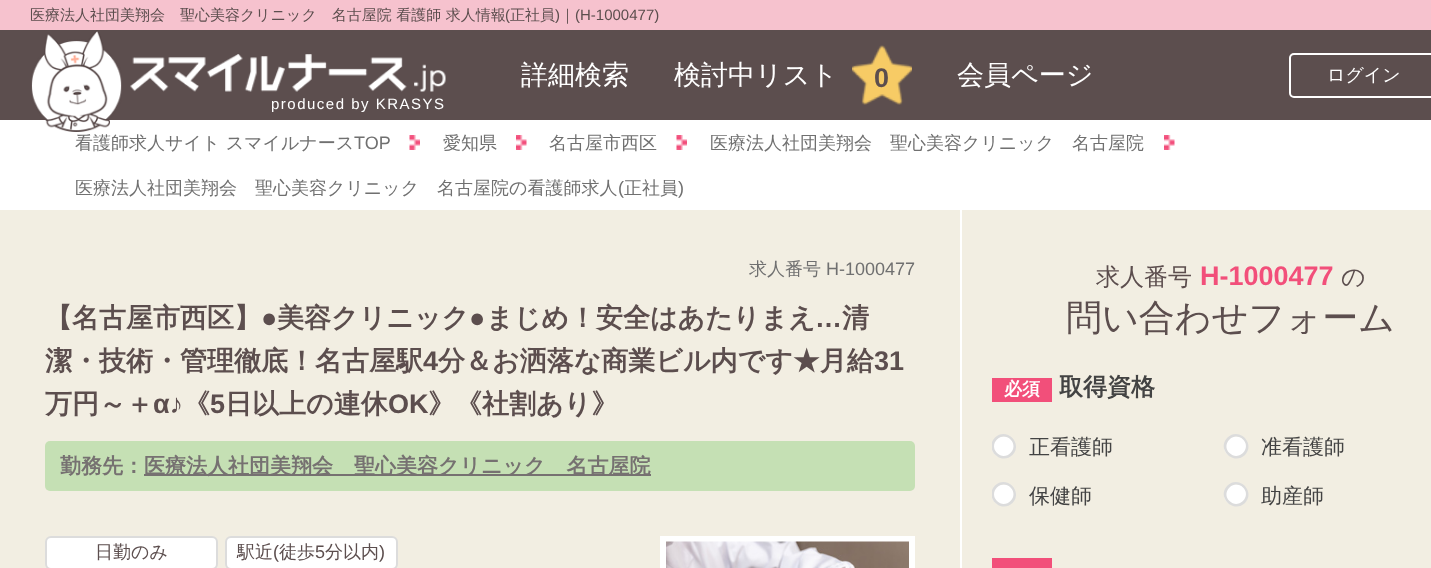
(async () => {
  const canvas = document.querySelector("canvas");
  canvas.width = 1431;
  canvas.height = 568;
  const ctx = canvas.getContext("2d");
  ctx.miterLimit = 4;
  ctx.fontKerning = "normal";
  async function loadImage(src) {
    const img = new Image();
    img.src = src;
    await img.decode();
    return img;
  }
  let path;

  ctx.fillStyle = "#f2eee2";
  ctx.fillRect(0, 0, 1431, 568);
  ctx.fillStyle = "#5c4e4e";
  ctx.fillRect(0, 30, 1431, 90);
  ctx.fillStyle = "#f6c2ce";
  ctx.fillRect(0, 0, 1431, 30);
  ctx.drawImage(await loadImage("img/1.png"), 852, 45, 60, 60);
  ctx.beginPath();
  ctx.roundRect(1290, 54, 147, 43, 4);
  ctx.strokeStyle = "#ffffff";
  ctx.lineWidth = 2;
  ctx.stroke();
  ctx.fillStyle = "#ffffff";
  ctx.fillRect(0, 120, 1431, 90);
  ctx.drawImage(await loadImage("img/2.png"), 31, 30, 91, 102);
  ctx.drawImage(await loadImage("img/3.png"), 130, 54, 316, 38);
  ctx.drawImage(await loadImage("img/4.png"), 409, 135, 11, 15);
  ctx.drawImage(await loadImage("img/5.png"), 516, 135, 11, 15);
  ctx.drawImage(await loadImage("img/4.png"), 676, 135, 11, 15);
  ctx.drawImage(await loadImage("img/6.png"), 1164, 135, 11, 15);
  ctx.fillStyle = "#c5e0b4";
  ctx.beginPath();
  ctx.roundRect(45, 441, 870, 50, 5);
  ctx.fill();
  ctx.fillStyle = "#767171";
  ctx.fillRect(144, 474, 507, 2);
  ctx.fillStyle = "#ffffff";
  ctx.beginPath();
  ctx.roundRect(46, 537, 171, 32, 5);
  ctx.fill();
  ctx.strokeStyle = "#dcdcdc";
  ctx.stroke();
  ctx.beginPath();
  ctx.roundRect(226, 537, 171, 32, 5);
  ctx.fill();
  ctx.stroke();
  ctx.strokeStyle = "#ffffff";
  ctx.lineWidth = 6;
  ctx.strokeRect(663, 539, 249, 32);
  ctx.drawImage(await loadImage("img/7.png"), 666, 541, 243, 27);
  ctx.fillRect(960, 210, 2, 358);
  ctx.fillStyle = "#f24f7a";
  ctx.fillRect(992, 378, 60, 24);
  ctx.save();
  ctx.beginPath();
  ctx.rect(992, 210, 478, 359);
  ctx.clip();
  ctx.fillStyle = "#ffffff";
  ctx.beginPath();
  ctx.ellipse(1003.5, 447, 12, 10.5, 0, 0, Math.PI * 2);
  ctx.fill();
  ctx.fillStyle = "#dcdcdc";
  path = new Path2D("M995 437.5C1006.5 426.5 1023.5 443.5 1012.5 455C1001 466 983.5 449 995 437.5ZM997 453C1006 462 1019.5 448.5 1010.5 439.5C1001.5 430.5 988 444 997 453Z");
  ctx.fill(path);
  ctx.restore();
  ctx.fillStyle = "#ffffff";
  ctx.beginPath();
  ctx.ellipse(1236, 447, 12, 10.5, 0, 0, Math.PI * 2);
  ctx.fill();
  ctx.fillStyle = "#dcdcdc";
  path = new Path2D("M1227.5 437.5C1239 426.5 1256 443.5 1245 455C1233.5 466 1216 449 1227.5 437.5ZM1229.5 453C1238.5 462 1252 448.5 1243 439.5C1234 430.5 1220.5 444 1229.5 453Z");
  ctx.fill(path);
  ctx.save();
  ctx.beginPath();
  ctx.rect(992, 210, 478, 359);
  ctx.clip();
  ctx.fillStyle = "#ffffff";
  ctx.beginPath();
  ctx.ellipse(1003.5, 495, 12, 10.5, 0, 0, Math.PI * 2);
  ctx.fill();
  ctx.fillStyle = "#dcdcdc";
  path = new Path2D("M995 485.5C1006.5 474.5 1023.5 491.5 1012.5 503C1001 514 983.5 497 995 485.5ZM997 501C1006 510 1019.5 496.5 1010.5 487.5C1001.5 478.5 988 492 997 501Z");
  ctx.fill(path);
  ctx.restore();
  ctx.fillStyle = "#ffffff";
  ctx.beginPath();
  ctx.ellipse(1236, 495, 12, 10.5, 0, 0, Math.PI * 2);
  ctx.fill();
  ctx.fillStyle = "#dcdcdc";
  path = new Path2D("M1227.5 485.5C1239 474.5 1256 491.5 1245 503C1233.5 514 1216 497 1227.5 485.5ZM1229.5 501C1238.5 510 1252 496.5 1243 487.5C1234 478.5 1220.5 492 1229.5 501Z");
  ctx.fill(path);
  ctx.fillStyle = "#f24f7a";
  ctx.fillRect(992, 558, 60, 10);
  ctx.font = "500 15px WenQuanYi Zen Hei";
  ctx.fillStyle = "#5c4e4e";
  ctx.fillText("医療法人社団美翔会　聖心美容クリニック　名古屋院 看護師 求人情報", 30, 20);
  ctx.font = "15px Liberation Sans";
  ctx.fillText("(", 505, 20);
  ctx.font = "500 15px WenQuanYi Zen Hei";
  ctx.fillText("正社員", 510, 20);
  ctx.font = "15px Liberation Sans";
  ctx.fillText(")", 555, 20);
  ctx.font = "500 15px WenQuanYi Zen Hei";
  ctx.fillText("｜", 560, 20);
  ctx.font = "15px Liberation Sans";
  ctx.fillText("(H-1000477)", 575, 20);
  ctx.font = "500 27px WenQuanYi Zen Hei";
  ctx.fillStyle = "#ffffff";
  ctx.fillText("詳細検索", 521, 84);
  ctx.fillText("検討中リスト", 674, 84);
  ctx.letterSpacing = "-3px";
  ctx.font = "bold 27px Liberation Sans";
  ctx.fillStyle = "#5c4e4e";
  ctx.fillText("0", 874, 87);
  ctx.letterSpacing = "0px";
  ctx.font = "500 27px WenQuanYi Zen Hei";
  ctx.fillStyle = "#ffffff";
  ctx.fillText("会員ページ", 957, 84);
  ctx.font = "500 18px WenQuanYi Zen Hei";
  ctx.fillText("ログイン", 1327, 81);
  ctx.letterSpacing = "1.5px";
  ctx.font = "15px Liberation Sans";
  ctx.fillText("produced by KRASYS", 271, 109);
  ctx.letterSpacing = "0px";
  ctx.font = "500 18px WenQuanYi Zen Hei";
  ctx.fillStyle = "#707070";
  ctx.fillText("看護師求人サイト スマイルナース", 75, 149);
  ctx.font = "18px Liberation Sans";
  ctx.fillText("TOP", 354, 149);
  ctx.font = "500 18px WenQuanYi Zen Hei";
  for (const [text, x, y] of [
    ["愛知県", 443, 149],
    ["名古屋市西区", 549, 149],
    ["医療法人社団美翔会　聖心美容クリニック　名古屋院", 710, 149],
    ["医療法人社団美翔会　聖心美容クリニック　名古屋院の看護師求人", 75, 194],
  ]) {
    ctx.fillText(text, x, y);
  }
  ctx.font = "18px Liberation Sans";
  ctx.fillText("(", 618, 194);
  ctx.font = "500 18px WenQuanYi Zen Hei";
  ctx.fillText("正社員", 624, 194);
  ctx.font = "18px Liberation Sans";
  ctx.fillText(")", 678, 194);
  ctx.font = "500 18px WenQuanYi Zen Hei";
  ctx.fillText("求人番号", 749, 275);
  ctx.font = "18px Liberation Sans";
  ctx.fillText("H-1000477", 826, 275);
  ctx.font = "bold 27px WenQuanYi Zen Hei";
  ctx.fillStyle = "#5c4e4e";
  ctx.fillText("【名古屋市西区】", 45, 327);
  ctx.font = "bold 27px Liberation Sans";
  ctx.fillText("●", 261, 327);
  ctx.font = "bold 27px WenQuanYi Zen Hei";
  ctx.fillText("美容クリニック", 277, 327);
  ctx.font = "bold 27px Liberation Sans";
  ctx.fillText("●", 469, 327);
  ctx.font = "bold 27px WenQuanYi Zen Hei";
  ctx.fillText("まじめ！安全はあたりまえ", 486, 327);
  ctx.font = "bold 27px Liberation Sans";
  ctx.fillText("…", 815, 327);
  ctx.font = "bold 27px WenQuanYi Zen Hei";
  ctx.fillText("清", 842, 327);
  ctx.fillText("潔・技術・管理徹底！名古屋駅", 45, 370);
  ctx.font = "bold 27px Liberation Sans";
  ctx.fillText("4", 423, 370);
  ctx.font = "bold 27px WenQuanYi Zen Hei";
  ctx.fillText("分＆お洒落な商業ビル内です★月給", 438, 370);
  ctx.font = "bold 27px Liberation Sans";
  ctx.fillText("31", 874, 370);
  ctx.font = "bold 27px WenQuanYi Zen Hei";
  ctx.fillText("万円～＋", 45, 413);
  ctx.font = "bold 27px Liberation Sans";
  ctx.fillText("α♪", 153, 413);
  ctx.font = "bold 27px WenQuanYi Zen Hei";
  ctx.fillText("《", 183, 413);
  ctx.font = "bold 27px Liberation Sans";
  ctx.fillText("5", 210, 413);
  ctx.font = "bold 27px WenQuanYi Zen Hei";
  ctx.fillText("日以上の連休", 225, 413);
  ctx.font = "bold 27px Liberation Sans";
  ctx.fillText("OK", 388, 413);
  ctx.font = "bold 27px WenQuanYi Zen Hei";
  ctx.fillText("》《社割あり》", 428, 413);
  ctx.font = "bold 21px WenQuanYi Zen Hei";
  ctx.fillStyle = "#767171";
  ctx.fillText("勤務先：", 60, 473);
  ctx.fillText("医療法人社団美翔会　聖心美容クリニック　名古屋院", 144, 473);
  ctx.font = "500 18px WenQuanYi Zen Hei";
  ctx.fillStyle = "#5c4e4e";
  ctx.fillText("日勤のみ", 95, 558);
  ctx.fillText("駅近", 237, 558);
  ctx.font = "18px Liberation Sans";
  ctx.fillText("(", 273, 558);
  ctx.font = "500 18px WenQuanYi Zen Hei";
  ctx.fillText("徒歩", 279, 558);
  ctx.font = "18px Liberation Sans";
  ctx.fillText("5", 315, 558);
  ctx.font = "500 18px WenQuanYi Zen Hei";
  ctx.fillText("分以内", 325, 558);
  ctx.font = "18px Liberation Sans";
  ctx.fillText(")", 379, 558);
  ctx.font = "500 24px WenQuanYi Zen Hei";
  ctx.fillText("求人番号", 1096, 285);
  ctx.font = "bold 27px Liberation Sans";
  ctx.fillStyle = "#f24f7a";
  ctx.fillText("H-1000477", 1200, 285);
  ctx.font = "500 24px WenQuanYi Zen Hei";
  ctx.fillStyle = "#5c4e4e";
  ctx.fillText("の", 1341, 285);
  ctx.font = "500 36px WenQuanYi Zen Hei";
  ctx.fillText("問い合わせフォーム", 1066, 330);
  ctx.font = "bold 18px WenQuanYi Zen Hei";
  ctx.fillStyle = "#ffffff";
  ctx.fillText("必須", 1004, 395);
  ctx.font = "bold 24px WenQuanYi Zen Hei";
  ctx.fillStyle = "#434343";
  ctx.fillText("取得資格", 1059, 395);
  ctx.font = "500 21px WenQuanYi Zen Hei";
  for (const [text, x, y] of [
    ["正看護師", 1029, 454],
    ["准看護師", 1261, 454],
    ["保健師", 1029, 503],
    ["助産師", 1261, 503],
  ]) {
    ctx.fillText(text, x, y);
  }
})();
